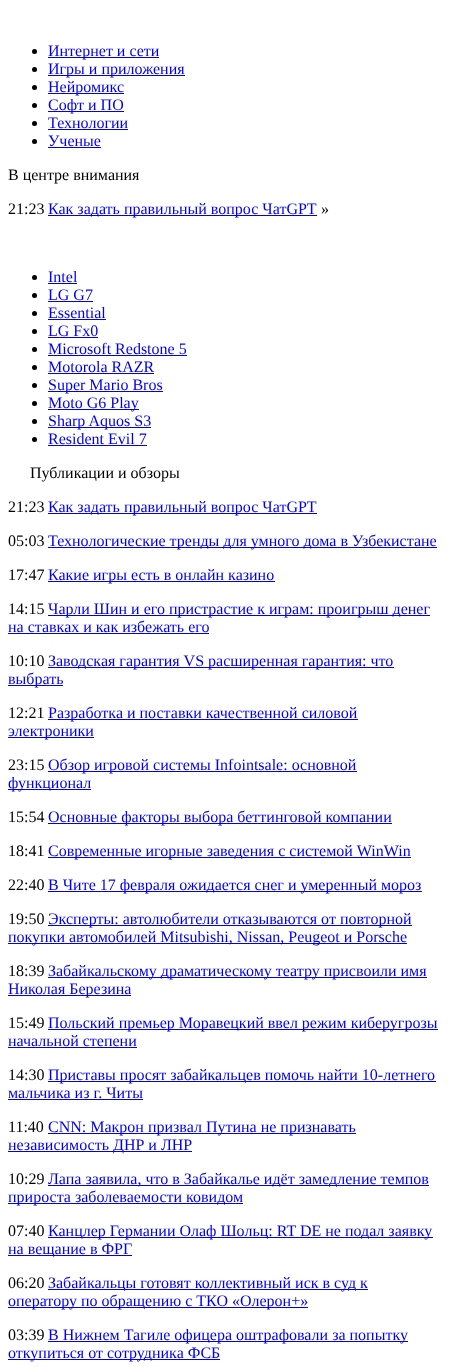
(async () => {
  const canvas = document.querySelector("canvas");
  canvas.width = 449;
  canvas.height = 1367;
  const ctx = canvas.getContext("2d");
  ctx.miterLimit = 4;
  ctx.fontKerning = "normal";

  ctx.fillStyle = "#ffffff";
  ctx.fillRect(0, 0, 449, 1367);
  ctx.fillStyle = "#000000";
  ctx.beginPath();
  ctx.arc(34.5, 51.5, 2.5, 0, Math.PI * 2);
  ctx.fill();
  ctx.fillStyle = "#0000ee";
  ctx.fillRect(48, 57, 111, 1);
  ctx.fillStyle = "#000000";
  ctx.beginPath();
  ctx.arc(34.5, 69.5, 2.5, 0, Math.PI * 2);
  ctx.fill();
  ctx.fillStyle = "#0000ee";
  ctx.fillRect(48, 75, 137, 1);
  ctx.fillStyle = "#000000";
  ctx.beginPath();
  ctx.arc(34.5, 87.5, 2.5, 0, Math.PI * 2);
  ctx.fill();
  ctx.fillStyle = "#0000ee";
  ctx.fillRect(48, 93, 76, 1);
  ctx.fillStyle = "#000000";
  ctx.beginPath();
  ctx.arc(34.5, 105.5, 2.5, 0, Math.PI * 2);
  ctx.fill();
  ctx.fillStyle = "#0000ee";
  ctx.fillRect(48, 111, 76, 1);
  ctx.fillStyle = "#000000";
  ctx.beginPath();
  ctx.arc(34.5, 123.5, 2.5, 0, Math.PI * 2);
  ctx.fill();
  ctx.fillStyle = "#0000ee";
  ctx.fillRect(48, 129, 80, 1);
  ctx.fillStyle = "#000000";
  ctx.beginPath();
  ctx.arc(34.5, 141.5, 2.5, 0, Math.PI * 2);
  ctx.fill();
  ctx.fillStyle = "#0000ee";
  ctx.fillRect(48, 147, 53, 1);
  ctx.fillRect(48, 215, 269, 1);
  ctx.fillStyle = "#000000";
  ctx.beginPath();
  ctx.arc(34.5, 277.5, 2.5, 0, Math.PI * 2);
  ctx.fill();
  ctx.fillStyle = "#0000ee";
  ctx.fillRect(48, 283, 29, 1);
  ctx.fillStyle = "#000000";
  ctx.beginPath();
  ctx.arc(34.5, 295.5, 2.5, 0, Math.PI * 2);
  ctx.fill();
  ctx.fillStyle = "#0000ee";
  ctx.fillRect(48, 301, 45, 1);
  ctx.fillStyle = "#000000";
  ctx.beginPath();
  ctx.arc(34.5, 313.5, 2.5, 0, Math.PI * 2);
  ctx.fill();
  ctx.fillStyle = "#0000ee";
  ctx.fillRect(48, 319, 58, 1);
  ctx.fillStyle = "#000000";
  ctx.beginPath();
  ctx.arc(34.5, 331.5, 2.5, 0, Math.PI * 2);
  ctx.fill();
  ctx.fillStyle = "#0000ee";
  ctx.fillRect(48, 337, 50, 1);
  ctx.fillStyle = "#000000";
  ctx.beginPath();
  ctx.arc(34.5, 349.5, 2.5, 0, Math.PI * 2);
  ctx.fill();
  ctx.fillStyle = "#0000ee";
  ctx.fillRect(48, 355, 139, 1);
  ctx.fillStyle = "#000000";
  ctx.beginPath();
  ctx.arc(34.5, 367.5, 2.5, 0, Math.PI * 2);
  ctx.fill();
  ctx.fillStyle = "#0000ee";
  ctx.fillRect(48, 373, 106, 1);
  ctx.fillStyle = "#000000";
  ctx.beginPath();
  ctx.arc(34.5, 385.5, 2.5, 0, Math.PI * 2);
  ctx.fill();
  ctx.fillStyle = "#0000ee";
  ctx.fillRect(48, 391, 115, 1);
  ctx.fillStyle = "#000000";
  ctx.beginPath();
  ctx.arc(34.5, 403.5, 2.5, 0, Math.PI * 2);
  ctx.fill();
  ctx.fillStyle = "#0000ee";
  ctx.fillRect(48, 409, 91, 1);
  ctx.fillStyle = "#000000";
  ctx.beginPath();
  ctx.arc(34.5, 421.5, 2.5, 0, Math.PI * 2);
  ctx.fill();
  ctx.fillStyle = "#0000ee";
  ctx.fillRect(48, 427, 103, 1);
  ctx.fillStyle = "#000000";
  ctx.beginPath();
  ctx.arc(34.5, 439.5, 2.5, 0, Math.PI * 2);
  ctx.fill();
  for (const [x, y, w, h, color] of [
    [48, 445, 99, 1, "#0000ee"],
    [48, 513, 269, 1, "#0000ee"],
    [48, 547, 389, 1, "#0000ee"],
    [48, 581, 227, 1, "#0000ee"],
    [48, 615, 382, 1, "#0000ee"],
    [8, 633, 201, 1, "#0000ee"],
    [48, 667, 346, 1, "#0000ee"],
    [8, 685, 55, 1, "#0000ee"],
    [48, 719, 310, 1, "#0000ee"],
    [8, 737, 86, 1, "#0000ee"],
    [48, 771, 309, 1, "#0000ee"],
    [8, 789, 83, 1, "#0000ee"],
    [48, 823, 344, 1, "#0000ee"],
    [48, 857, 363, 1, "#0000ee"],
    [48, 891, 374, 1, "#0000ee"],
    [48, 925, 364, 1, "#0000ee"],
    [8, 943, 399, 1, "#0000ee"],
    [48, 977, 379, 1, "#0000ee"],
    [8, 995, 123, 1, "#0000ee"],
    [48, 1029, 390, 1, "#0000ee"],
    [8, 1047, 129, 1, "#0000ee"],
    [48, 1081, 388, 1, "#0000ee"],
    [8, 1099, 135, 1, "#0000ee"],
    [48, 1133, 308, 1, "#0000ee"],
    [8, 1151, 184, 1, "#0000ee"],
    [48, 1185, 381, 1, "#0000ee"],
    [8, 1203, 235, 1, "#0000ee"],
    [48, 1237, 385, 1, "#0000ee"],
    [8, 1255, 124, 1, "#0000ee"],
    [48, 1289, 320, 1, "#0000ee"],
    [8, 1307, 300, 1, "#0000ee"],
    [48, 1341, 360, 1, "#0000ee"],
    [8, 1359, 212, 1, "#0000ee"],
  ]) {
    ctx.fillStyle = color;
    ctx.fillRect(x, y, w, h);
  }
  ctx.font = "16px Liberation Serif";
  for (const [text, x, y] of [
    ["Интернет и сети", 48, 56],
    ["Игры и приложения", 48, 74],
    ["Нейромикс", 48, 92],
    ["Софт и ПО", 48, 110],
    ["Технологии", 48, 128],
    ["Ученые", 48, 146],
  ]) {
    ctx.fillText(text, x, y);
  }
  ctx.fillStyle = "#000000";
  ctx.fillText("В центре внимания", 8, 180);
  ctx.fillText("21:23", 8, 214);
  ctx.fillStyle = "#0000ee";
  ctx.fillText("Как задать правильный вопрос ЧатGPT", 48, 214);
  ctx.fillStyle = "#000000";
  ctx.fillText("»", 321, 214);
  ctx.fillStyle = "#0000ee";
  for (const [text, x, y] of [
    ["Intel", 48, 282],
    ["LG G7", 48, 300],
    ["Essential", 48, 318],
    ["LG Fx0", 48, 336],
    ["Microsoft Redstone 5", 48, 354],
    ["Motorola RAZR", 48, 372],
    ["Super Mario Bros", 48, 390],
    ["Moto G6 Play", 48, 408],
    ["Sharp Aquos S3", 48, 426],
    ["Resident Evil 7", 48, 444],
  ]) {
    ctx.fillText(text, x, y);
  }
  ctx.fillStyle = "#000000";
  ctx.fillText("Публикации и обзоры", 30, 478);
  ctx.fillText("21:23", 8, 512);
  ctx.fillStyle = "#0000ee";
  ctx.fillText("Как задать правильный вопрос ЧатGPT", 48, 512);
  ctx.fillStyle = "#000000";
  ctx.fillText("05:03", 8, 546);
  ctx.fillStyle = "#0000ee";
  ctx.fillText("Технологические тренды для умного дома в Узбекистане", 48, 546);
  ctx.fillStyle = "#000000";
  ctx.fillText("17:47", 8, 580);
  ctx.fillStyle = "#0000ee";
  ctx.fillText("Какие игры есть в онлайн казино", 48, 580);
  ctx.fillStyle = "#000000";
  ctx.fillText("14:15", 8, 614);
  ctx.fillStyle = "#0000ee";
  ctx.fillText("Чарли Шин и его пристрастие к играм: проигрыш денег", 48, 614);
  ctx.fillText("на ставках и как избежать его", 8, 632);
  ctx.fillStyle = "#000000";
  ctx.fillText("10:10", 8, 666);
  ctx.fillStyle = "#0000ee";
  ctx.fillText("Заводская гарантия VS расширенная гарантия: что", 48, 666);
  ctx.fillText("выбрать", 8, 684);
  ctx.fillStyle = "#000000";
  ctx.fillText("12:21", 8, 718);
  ctx.fillStyle = "#0000ee";
  ctx.fillText("Разработка и поставки качественной силовой", 48, 718);
  ctx.fillText("электроники", 8, 736);
  ctx.fillStyle = "#000000";
  ctx.fillText("23:15", 8, 770);
  ctx.fillStyle = "#0000ee";
  ctx.fillText("Обзор игровой системы Infointsale: основной", 48, 770);
  ctx.fillText("функционал", 8, 788);
  ctx.fillStyle = "#000000";
  ctx.fillText("15:54", 8, 822);
  ctx.fillStyle = "#0000ee";
  ctx.fillText("Основные факторы выбора беттинговой компании", 48, 822);
  ctx.fillStyle = "#000000";
  ctx.fillText("18:41", 8, 856);
  ctx.fillStyle = "#0000ee";
  ctx.fillText("Современные игорные заведения с системой WinWin", 48, 856);
  ctx.fillStyle = "#000000";
  ctx.fillText("22:40", 8, 890);
  ctx.fillStyle = "#0000ee";
  ctx.fillText("В Чите 17 февраля ожидается снег и умеренный мороз", 48, 890);
  ctx.fillStyle = "#000000";
  ctx.fillText("19:50", 8, 924);
  ctx.fillStyle = "#0000ee";
  ctx.fillText("Эксперты: автолюбители отказываются от повторной", 48, 924);
  ctx.fillText("покупки автомобилей Mitsubishi, Nissan, Peugeot и Porsche", 8, 942);
  ctx.fillStyle = "#000000";
  ctx.fillText("18:39", 8, 976);
  ctx.fillStyle = "#0000ee";
  ctx.fillText("Забайкальскому драматическому театру присвоили имя", 48, 976);
  ctx.fillText("Николая Березина", 8, 994);
  ctx.fillStyle = "#000000";
  ctx.fillText("15:49", 8, 1028);
  ctx.fillStyle = "#0000ee";
  ctx.fillText("Польский премьер Моравецкий ввел режим киберугрозы", 48, 1028);
  ctx.fillText("начальной степени", 8, 1046);
  ctx.fillStyle = "#000000";
  ctx.fillText("14:30", 8, 1080);
  ctx.fillStyle = "#0000ee";
  ctx.fillText("Приставы просят забайкальцев помочь найти 10-летнего", 48, 1080);
  ctx.fillText("мальчика из г. Читы", 8, 1098);
  ctx.fillStyle = "#000000";
  ctx.fillText("11:40", 8, 1132);
  ctx.fillStyle = "#0000ee";
  ctx.fillText("CNN: Макрон призвал Путина не признавать", 48, 1132);
  ctx.fillText("независимость ДНР и ЛНР", 8, 1150);
  ctx.fillStyle = "#000000";
  ctx.fillText("10:29", 8, 1184);
  ctx.fillStyle = "#0000ee";
  ctx.fillText("Лапа заявила, что в Забайкалье идёт замедление темпов", 48, 1184);
  ctx.fillText("прироста заболеваемости ковидом", 8, 1202);
  ctx.fillStyle = "#000000";
  ctx.fillText("07:40", 8, 1236);
  ctx.fillStyle = "#0000ee";
  ctx.fillText("Канцлер Германии Олаф Шольц: RT DE не подал заявку", 48, 1236);
  ctx.fillText("на вещание в ФРГ", 8, 1254);
  ctx.fillStyle = "#000000";
  ctx.fillText("06:20", 8, 1288);
  ctx.fillStyle = "#0000ee";
  ctx.fillText("Забайкальцы готовят коллективный иск в суд к", 48, 1288);
  ctx.fillText("оператору по обращению с ТКО «Олерон+»", 8, 1306);
  ctx.fillStyle = "#000000";
  ctx.fillText("03:39", 8, 1340);
  ctx.fillStyle = "#0000ee";
  ctx.fillText("В Нижнем Тагиле офицера оштрафовали за попытку", 48, 1340);
  ctx.fillText("откупиться от сотрудника ФСБ", 8, 1358);
})();
